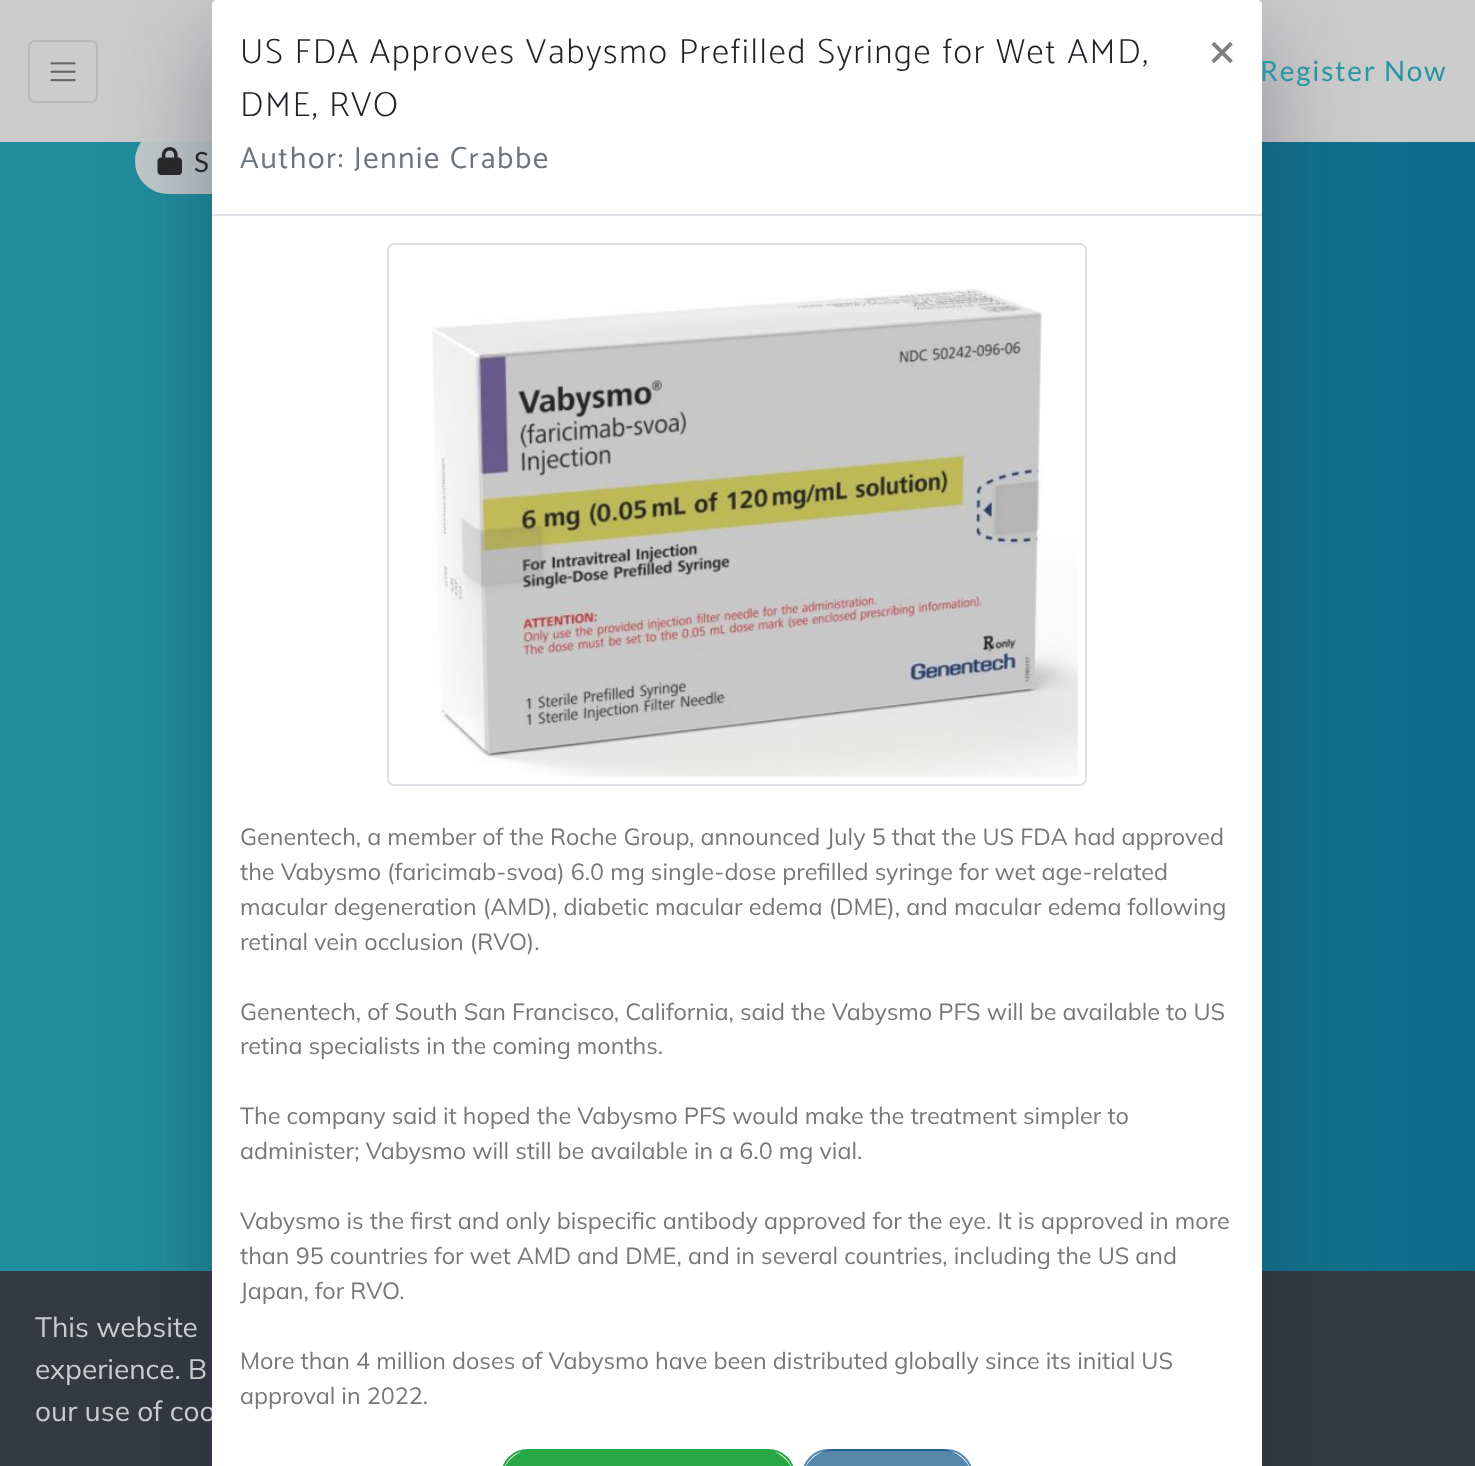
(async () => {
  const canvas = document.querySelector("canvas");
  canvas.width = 1475;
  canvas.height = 1466;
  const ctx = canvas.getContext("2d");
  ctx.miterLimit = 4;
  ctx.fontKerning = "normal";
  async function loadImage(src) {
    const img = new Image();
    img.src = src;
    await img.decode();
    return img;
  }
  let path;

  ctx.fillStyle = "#ffffff";
  ctx.fillRect(0, 0, 1475, 1466);
  ctx.fillStyle = "#353a41";
  ctx.fillRect(0, 1271, 1475, 195);
  ctx.drawImage(await loadImage("img/3.png"), 0, 142, 1475, 1129);
  ctx.fillStyle = "#c2c9ca";
  ctx.beginPath();
  ctx.roundRect(136, 129, 204, 64, 32);
  ctx.fill();
  ctx.strokeStyle = "#c2c9ca";
  ctx.lineWidth = 2;
  ctx.stroke();
  ctx.fillStyle = "#cccccc";
  ctx.fillRect(0, 0, 1475, 142);
  ctx.beginPath();
  ctx.roundRect(29, 41, 68, 61, 6);
  ctx.strokeStyle = "#b8b8b8";
  ctx.stroke();
  ctx.drawImage(await loadImage("img/2.png"), 50, 62, 26, 20);
  ctx.drawImage(await loadImage("img/4.png"), 157, 147, 25, 28);
  ctx.fillStyle = "rgba(27, 33, 58, 0.4)";
  ctx.filter = "blur(52.5px)";
  ctx.beginPath();
  ctx.roundRect(215, 39, 1043, 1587, 2);
  ctx.fill();
  ctx.filter = "none";
  ctx.font = "200 28px Mulish";
  ctx.fillStyle = "#cccccc";
  for (const [text, x, y] of [
    ["This website", 35, 1337],
    ["experience. B", 35, 1379],
    ["our use of coo", 35, 1421],
  ]) {
    ctx.fillText(text, x, y);
  }
  ctx.fillStyle = "#ffffff";
  path = new Path2D("M217 0H1257C1260 0 1262 2 1262 5V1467H212V5C212 2 214 0 217 0Z");
  ctx.fill(path);
  ctx.fillStyle = "#dee2e6";
  ctx.fillRect(212, 214, 1050, 2);
  ctx.letterSpacing = "1.75px";
  ctx.font = "100 35px Catamaran";
  ctx.fillStyle = "#212529";
  ctx.fillText("US FDA Approves Vabysmo Prefilled Syringe for Wet AMD,", 240, 63);
  ctx.fillText("DME, RVO", 240, 116);
  ctx.font = "100 30.6px 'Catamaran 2'";
  ctx.fillStyle = "#6c757d";
  ctx.fillText("Author: Jennie Crabbe", 240, 168);
  ctx.letterSpacing = "0px";
  ctx.font = "bold 42px Mulish";
  ctx.fillStyle = "#808080";
  ctx.fillText("×", 1209, 65);
  ctx.beginPath();
  ctx.roundRect(388, 244, 698, 541, 6);
  ctx.strokeStyle = "#dee2e6";
  ctx.stroke();
  ctx.drawImage(await loadImage("img/1.png"), 432, 288, 646, 489);
  ctx.font = "200 23.35px Mulish";
  ctx.fillStyle = "#777777";
  for (const [text, x, y] of [
    ["Genentech, a member of the Roche Group, announced July 5 that the US FDA had approved", 240, 845],
    ["the Vabysmo (faricimab-svoa) 6.0 mg single-dose prefilled syringe for wet age-related", 240, 880],
    ["macular degeneration (AMD), diabetic macular edema (DME), and macular edema following", 240, 915],
    ["retinal vein occlusion (RVO).", 240, 950],
    ["Genentech, of South San Francisco, California, said the Vabysmo PFS will be available to US", 240, 1020],
    ["retina specialists in the coming months.", 240, 1054],
    ["The company said it hoped the Vabysmo PFS would make the treatment simpler to", 240, 1124],
    ["administer; Vabysmo will still be available in a 6.0 mg vial.", 240, 1159],
    ["Vabysmo is the first and only bispecific antibody approved for the eye. It is approved in more", 240, 1229],
    ["than 95 countries for wet AMD and DME, and in several countries, including the US and", 240, 1264],
    ["Japan, for RVO.", 240, 1299],
    ["More than 4 million doses of Vabysmo have been distributed globally since its initial US", 240, 1369],
    ["approval in 2022.", 240, 1404],
  ]) {
    ctx.fillText(text, x, y);
  }
  ctx.fillStyle = "#28a745";
  path = new Path2D("M534.5 1449H761.5C780 1449 795 1464 795 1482.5V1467H501V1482.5C501 1464 516 1449 534.5 1449Z");
  ctx.fill(path);
  ctx.beginPath();
  ctx.roundRect(502, 1450, 292, 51, 32.5);
  ctx.strokeStyle = "#28a745";
  ctx.stroke();
  ctx.fillStyle = "#5487a9";
  path = new Path2D("M835.5 1449H939.5C958 1449 973 1464 973 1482.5V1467H802V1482.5C802 1464 817 1449 835.5 1449Z");
  ctx.fill(path);
  ctx.beginPath();
  ctx.roundRect(803, 1450, 169, 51, 32.5);
  ctx.strokeStyle = "rgba(10, 83, 132, 0.7)";
  ctx.stroke();
  ctx.letterSpacing = "1.75px";
  ctx.font = "28px Lato";
  ctx.fillStyle = "#2696a3";
  ctx.fillText("Register Now", 1260, 81);
  ctx.letterSpacing = "4px";
  ctx.fillStyle = "#292929";
  ctx.fillText("S", 194, 172);
})();
